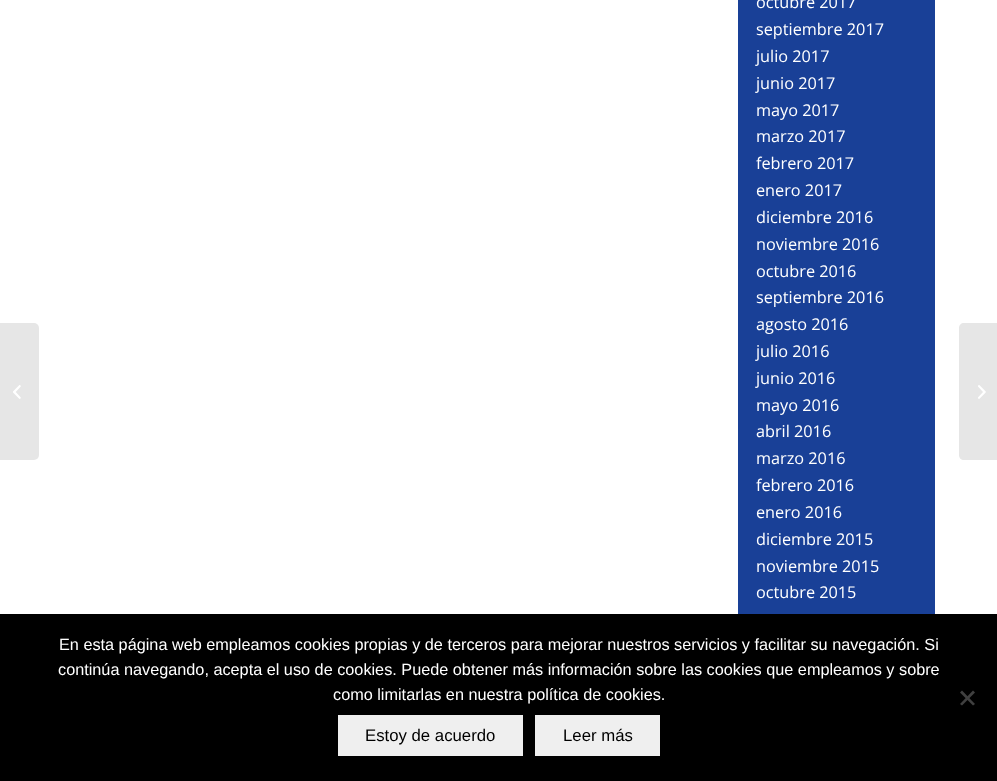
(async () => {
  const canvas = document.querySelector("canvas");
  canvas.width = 997;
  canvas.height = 781;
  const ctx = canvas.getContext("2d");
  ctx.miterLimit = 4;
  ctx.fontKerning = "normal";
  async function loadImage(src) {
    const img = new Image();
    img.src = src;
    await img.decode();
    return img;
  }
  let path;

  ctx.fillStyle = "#ffffff";
  ctx.fillRect(0, 0, 997, 781);
  ctx.fillStyle = "#e6e6e6";
  ctx.beginPath();
  ctx.roundRect(0, 323, 39, 137, [0, 5, 5, 0]);
  ctx.fill();
  ctx.drawImage(await loadImage("img/1.png"), 13, 385, 8, 14);
  ctx.fillStyle = "#194097";
  ctx.fillRect(738, 0, 197, 614);
  ctx.fillStyle = "#e6e6e6";
  path = new Path2D("M964 323H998V460H964C961 460 959 458 959 455V328C959 325 961 323 964 323Z");
  ctx.fill(path);
  ctx.drawImage(await loadImage("img/2.png"), 978, 385, 8, 14);
  ctx.fillStyle = "#000000";
  ctx.fillRect(0, 614, 997, 167);
  ctx.fillStyle = "#404040";
  path = new Path2D("M973 690.5L975 692.5L962 705.5L960 704Z");
  ctx.fill(path);
  path = new Path2D("M960 692.5L962 690.5L975 704L973 705.5Z");
  ctx.fill(path);
  ctx.fillStyle = "#efefef";
  ctx.fillRect(338, 715, 185, 41);
  ctx.fillRect(535, 715, 125, 41);
  ctx.font = "16.25px Open Sans";
  ctx.fillStyle = "#ffffff";
  for (const [text, x, y] of [
    ["octubre 2017", 756, 8],
    ["septiembre 2017", 756, 35],
    ["julio 2017", 756, 62],
    ["junio 2017", 756, 89],
    ["mayo 2017", 756, 116],
    ["marzo 2017", 756, 142],
    ["febrero 2017", 756, 169],
    ["enero 2017", 756, 196],
    ["diciembre 2016", 756, 223],
    ["noviembre 2016", 756, 250],
    ["octubre 2016", 756, 277],
    ["septiembre 2016", 756, 303],
    ["agosto 2016", 756, 330],
    ["julio 2016", 756, 357],
    ["junio 2016", 756, 384],
    ["mayo 2016", 756, 411],
    ["abril 2016", 756, 437],
    ["marzo 2016", 756, 464],
    ["febrero 2016", 756, 491],
    ["enero 2016", 756, 518],
    ["diciembre 2015", 756, 545],
    ["noviembre 2015", 756, 572],
    ["octubre 2015", 756, 598],
  ]) {
    ctx.fillText(text, x, y);
  }
  ctx.font = "16.25px Liberation Sans";
  for (const [text, x, y] of [
    ["En esta página web empleamos cookies propias y de terceros para mejorar nuestros servicios y facilitar su navegación. Si", 59, 650],
    ["continúa navegando, acepta el uso de cookies. Puede obtener más información sobre las cookies que empleamos y sobre", 58, 675],
    ["como limitarlas en nuestra política de cookies.", 333, 700],
  ]) {
    ctx.fillText(text, x, y);
  }
  ctx.font = "16.75px Liberation Sans";
  ctx.fillStyle = "#000000";
  ctx.fillText("Estoy de acuerdo", 365, 741);
  ctx.fillText("Leer más", 563, 741);
})();
